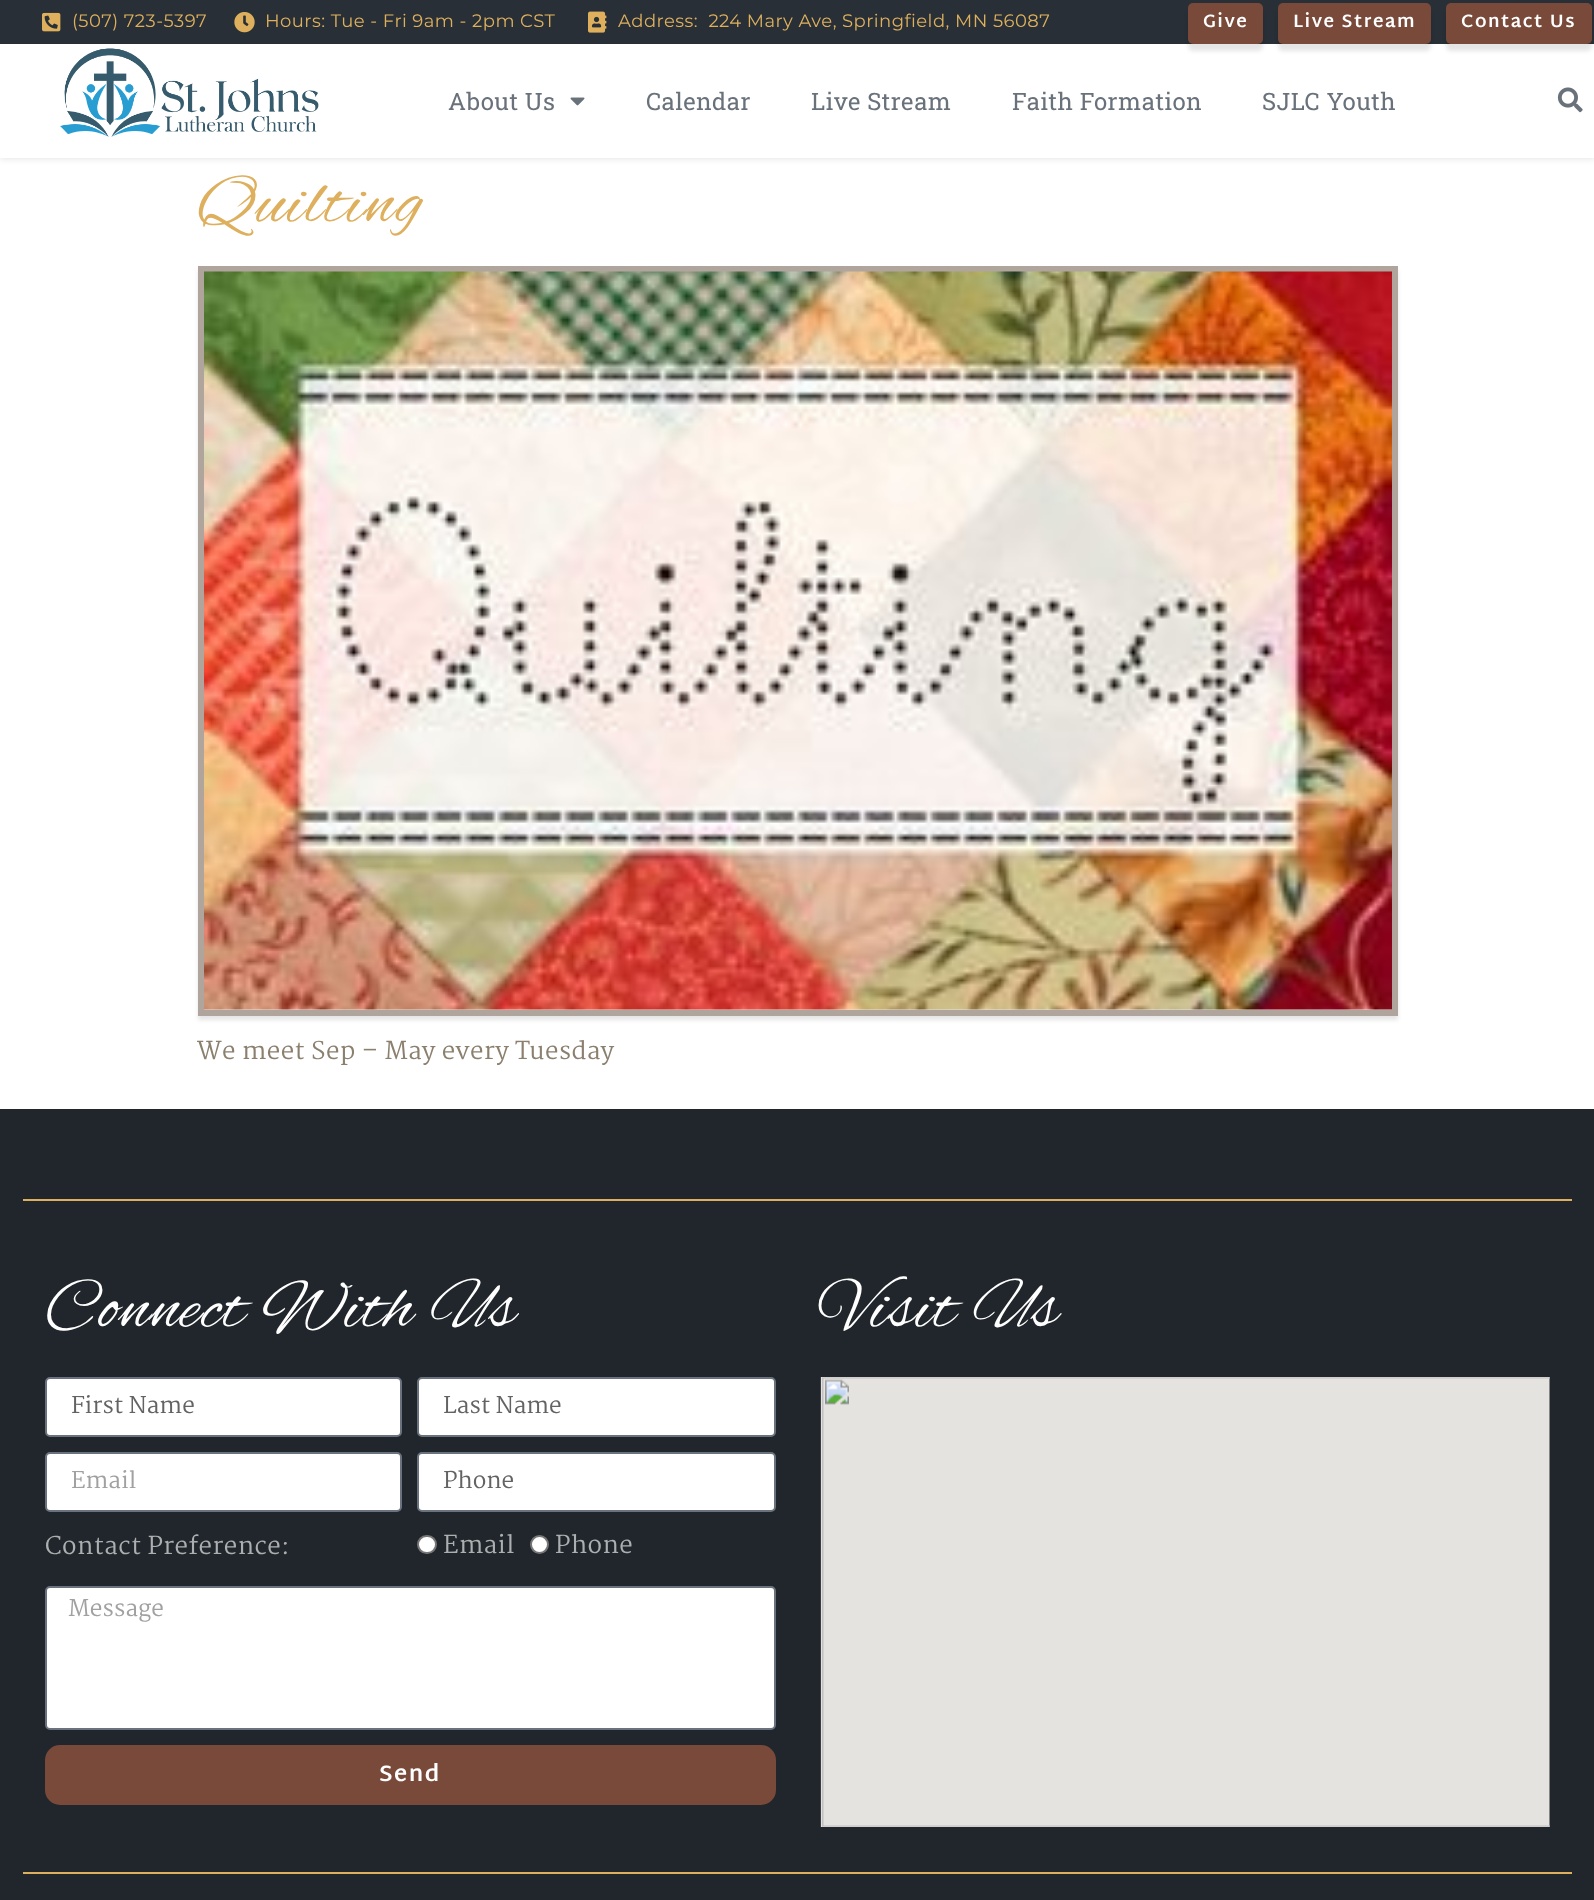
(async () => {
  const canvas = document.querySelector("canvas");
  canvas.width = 1594;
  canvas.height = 1900;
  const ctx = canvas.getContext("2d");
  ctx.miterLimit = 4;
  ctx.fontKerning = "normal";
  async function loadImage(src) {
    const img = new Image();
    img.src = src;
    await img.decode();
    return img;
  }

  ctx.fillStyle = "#ffffff";
  ctx.fillRect(0, 0, 1594, 1900);
  ctx.fillStyle = "rgba(0, 0, 0, 0.1)";
  ctx.filter = "blur(3px)";
  ctx.beginPath();
  ctx.rect(0, 45, 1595, 114);
  ctx.fill();
  ctx.filter = "none";
  ctx.fillStyle = "#282f36";
  ctx.fillRect(0, 0, 1594, 44);
  ctx.drawImage(await loadImage("img/1.png"), 42, 12, 19, 20);
  ctx.drawImage(await loadImage("img/2.png"), 234, 12, 21, 21);
  ctx.drawImage(await loadImage("img/3.png"), 588, 11, 19, 22);
  ctx.fillStyle = "#ffffff";
  ctx.fillRect(0, 44, 1594, 114);
  ctx.fillStyle = "rgba(0, 0, 0, 0.1)";
  ctx.filter = "blur(2px)";
  ctx.beginPath();
  ctx.roundRect(1188, 11, 75, 40, 5);
  ctx.fill();
  ctx.filter = "none";
  ctx.fillStyle = "#794a3a";
  ctx.beginPath();
  ctx.roundRect(1188, 3, 75, 41, 5);
  ctx.fill();
  ctx.fillStyle = "rgba(0, 0, 0, 0.1)";
  ctx.filter = "blur(2px)";
  ctx.beginPath();
  ctx.roundRect(1278, 11, 153, 40, 5);
  ctx.fill();
  ctx.filter = "none";
  ctx.fillStyle = "#794a3a";
  ctx.beginPath();
  ctx.roundRect(1278, 3, 153, 41, 5);
  ctx.fill();
  ctx.fillStyle = "rgba(0, 0, 0, 0.1)";
  ctx.filter = "blur(2px)";
  ctx.beginPath();
  ctx.roundRect(1446, 11, 146, 40, 5);
  ctx.fill();
  ctx.filter = "none";
  ctx.fillStyle = "#794a3a";
  ctx.beginPath();
  ctx.roundRect(1446, 3, 146, 41, 5);
  ctx.fill();
  ctx.drawImage(await loadImage("img/4.png"), 60, 48, 259, 89);
  ctx.drawImage(await loadImage("img/5.png"), 570, 97, 15, 9);
  ctx.drawImage(await loadImage("img/6.png"), 1557, 87, 26, 26);
  ctx.fillStyle = "rgba(0, 0, 0, 0.1)";
  ctx.filter = "blur(2px)";
  ctx.beginPath();
  ctx.rect(198, 270, 1200, 750);
  ctx.fill();
  ctx.filter = "none";
  ctx.strokeStyle = "#afa59d";
  ctx.lineWidth = 6;
  ctx.strokeRect(201, 269, 1194, 744);
  ctx.drawImage(await loadImage("img/7.png"), 204, 271, 1188, 739);
  ctx.fillStyle = "#20262b";
  ctx.fillRect(0, 1109, 1594, 791);
  ctx.fillStyle = "#deb05e";
  ctx.fillRect(23, 1199, 1549, 2);
  ctx.fillStyle = "#ffffff";
  ctx.beginPath();
  ctx.roundRect(46, 1378, 355, 58, 4);
  ctx.fill();
  ctx.strokeStyle = "#69727d";
  ctx.lineWidth = 2;
  ctx.stroke();
  ctx.beginPath();
  ctx.roundRect(418, 1378, 357, 58, 4);
  ctx.fill();
  ctx.stroke();
  ctx.beginPath();
  ctx.roundRect(46, 1453, 355, 58, 4);
  ctx.fill();
  ctx.stroke();
  ctx.beginPath();
  ctx.roundRect(418, 1453, 357, 58, 4);
  ctx.fill();
  ctx.stroke();
  ctx.beginPath();
  ctx.roundRect(418, 1536, 18, 17, 8.5);
  ctx.fill();
  ctx.strokeStyle = "#767676";
  ctx.stroke();
  ctx.beginPath();
  ctx.arc(539.5, 1544.5, 8.5, 0, Math.PI * 2);
  ctx.fill();
  ctx.stroke();
  ctx.beginPath();
  ctx.roundRect(46, 1587, 729, 142, 4);
  ctx.fill();
  ctx.strokeStyle = "#69727d";
  ctx.stroke();
  ctx.fillStyle = "#794a3a";
  ctx.beginPath();
  ctx.roundRect(45, 1745, 731, 60, 15);
  ctx.fill();
  ctx.drawImage(await loadImage("img/8.png"), 820, 1377, 730, 450);
  ctx.fillStyle = "#deb05e";
  ctx.fillRect(23, 1872, 1549, 2);
  ctx.letterSpacing = "0.45px";
  ctx.font = "18px Montserrat";
  for (const [text, x, y] of [
    ["(507) 723-5397", 72, 27],
    ["Hours: Tue - Fri 9am - 2pm CST", 265, 27],
    ["Address:  224 Mary Ave, Springfield, MN 56087", 618, 27],
  ]) {
    ctx.fillText(text, x, y);
  }
  ctx.letterSpacing = "1.5px";
  ctx.font = "bold 18px Martel Sans";
  ctx.fillStyle = "#ffffff";
  for (const [text, x, y] of [
    ["Give", 1203, 27],
    ["Live Stream", 1293, 27],
    ["Contact Us", 1461, 27],
  ]) {
    ctx.fillText(text, x, y);
  }
  ctx.letterSpacing = "0.45px";
  ctx.font = "24px Roboto Slab";
  ctx.fillStyle = "#69717a";
  for (const [text, x, y] of [
    ["About Us", 448, 110],
    ["Calendar", 646, 110],
    ["Live Stream", 811, 110],
    ["Faith Formation", 1012, 110],
    ["SJLC Youth", 1262, 110],
  ]) {
    ctx.fillText(text, x, y);
  }
  ctx.letterSpacing = "1.5px";
  ctx.font = "72px Alex Brush";
  ctx.fillStyle = "#deb05e";
  ctx.fillText("Quilting", 197, 221);
  ctx.letterSpacing = "0.45px";
  ctx.font = "24px Martel";
  ctx.fillStyle = "#8b7f6e";
  ctx.fillText("We meet Sep – May every Tuesday", 197, 1059);
  ctx.letterSpacing = "1.5px";
  ctx.font = "72px Alex Brush";
  ctx.fillStyle = "#ffffff";
  ctx.fillText("Connect With Us", 45, 1326);
  ctx.letterSpacing = "0px";
  ctx.font = "22.5px Martel";
  ctx.fillStyle = "#636363";
  ctx.fillText("First Name", 71, 1413);
  ctx.fillText("Last Name", 443, 1413);
  ctx.fillStyle = "#a1a1a1";
  ctx.fillText("Email", 71, 1488);
  ctx.fillStyle = "#636363";
  ctx.fillText("Phone", 443, 1488);
  ctx.letterSpacing = "0.45px";
  ctx.font = "24px Martel";
  ctx.fillStyle = "#acafb1";
  for (const [text, x, y] of [
    ["Contact Preference:", 45, 1554],
    ["Email", 443, 1553],
    ["Phone", 555, 1553],
  ]) {
    ctx.fillText(text, x, y);
  }
  ctx.letterSpacing = "0px";
  ctx.font = "22.5px Martel";
  ctx.fillStyle = "#a1a1a1";
  ctx.fillText("Message", 68, 1616);
  ctx.letterSpacing = "1.5px";
  ctx.font = "bold 22.5px Martel Sans";
  ctx.fillStyle = "#ffffff";
  ctx.fillText("Send", 379, 1781);
  ctx.font = "72px Alex Brush";
  ctx.fillText("Visit Us", 820, 1326);
})();
